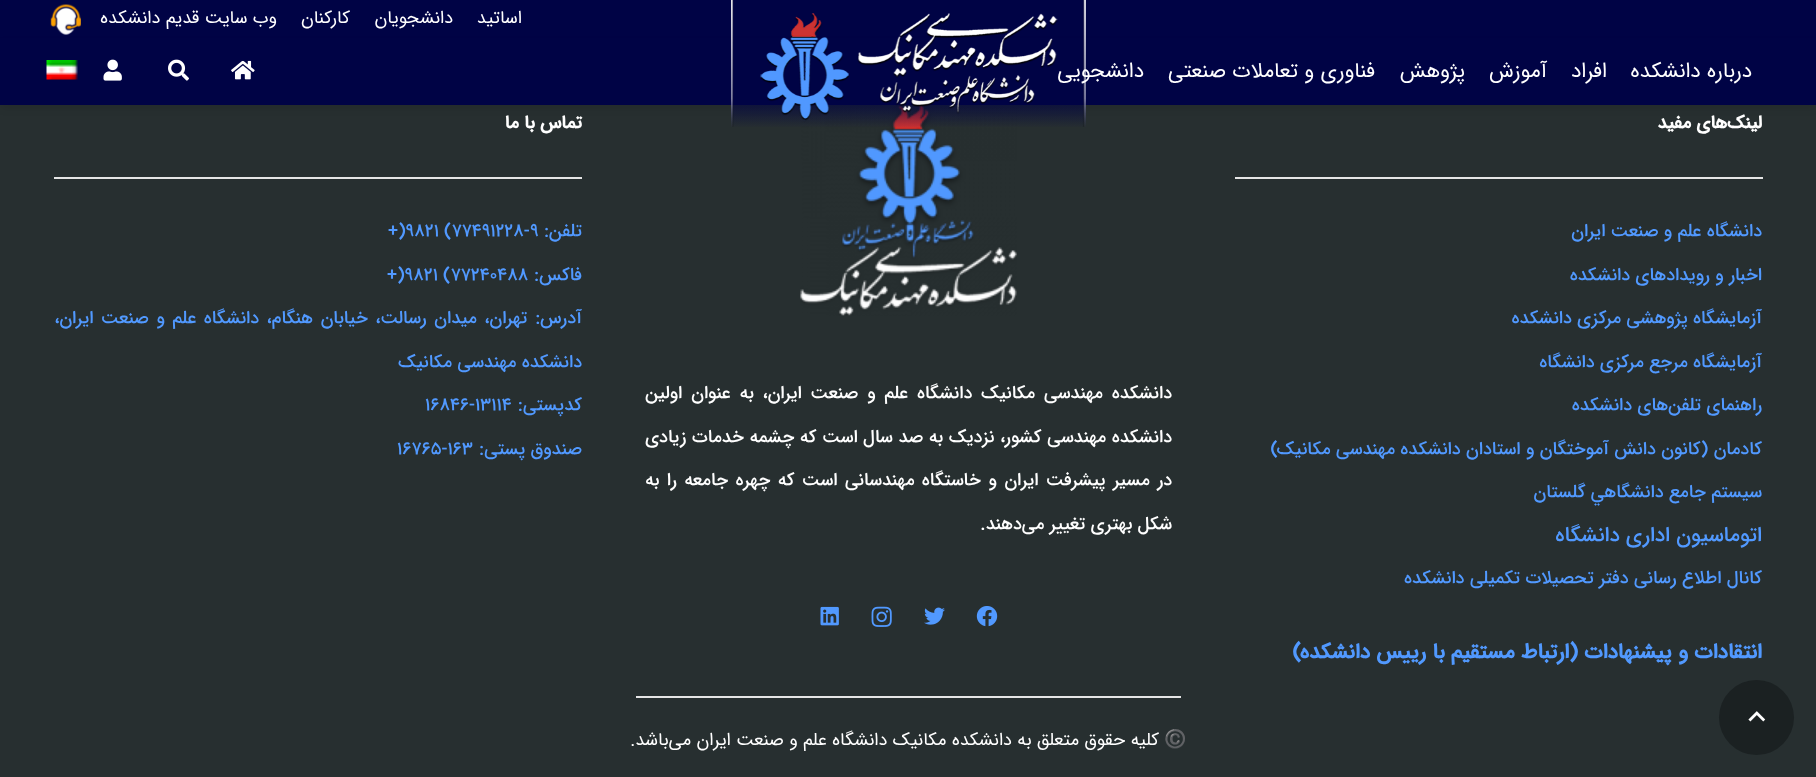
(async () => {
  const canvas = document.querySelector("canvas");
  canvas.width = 1816;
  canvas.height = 777;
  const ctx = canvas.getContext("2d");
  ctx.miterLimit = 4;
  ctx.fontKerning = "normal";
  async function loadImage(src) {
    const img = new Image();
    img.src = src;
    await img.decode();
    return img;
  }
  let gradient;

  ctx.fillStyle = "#272f30";
  ctx.fillRect(0, 0, 1816, 777);
  ctx.fillStyle = "#000345";
  ctx.fillRect(0, 0, 1816, 38);
  ctx.drawImage(await loadImage("img/7.png"), 800, 105, 217, 211);
  ctx.fillStyle = "rgba(0, 0, 0, 0.1)";
  ctx.filter = "blur(4px)";
  ctx.beginPath();
  ctx.rect(2, 44, 1813, 64);
  ctx.fill();
  ctx.filter = "none";
  gradient = ctx.createLinearGradient(908, 0, 908, 128);
  gradient.addColorStop(0, "#000345");
  gradient.addColorStop(0.5, "#000345");
  gradient.addColorStop(1, "rgba(0, 3, 69, 0)");
  ctx.fillStyle = gradient;
  ctx.fillRect(731, 105, 355, 22);
  ctx.fillRect(731, 105, 355, 22);
  ctx.fillStyle = "#000345";
  ctx.fillRect(0, 38, 1816, 67);
  ctx.drawImage(await loadImage("img/1.png"), 731, 0, 355, 127);
  ctx.drawImage(await loadImage("img/2.png"), 50, 4, 31, 31);
  ctx.drawImage(await loadImage("img/3.png"), 231, 60, 24, 20);
  ctx.drawImage(await loadImage("img/4.png"), 168, 59, 21, 22);
  ctx.drawImage(await loadImage("img/5.png"), 103, 59, 19, 22);
  ctx.drawImage(await loadImage("img/6.png"), 46, 60, 32, 20);
  ctx.fillStyle = "#e5e5e5";
  ctx.fillRect(1235, 177, 528, 2);
  ctx.drawImage(await loadImage("img/8.png"), 976, 606, 22, 21);
  ctx.drawImage(await loadImage("img/9.png"), 924, 607, 21, 18);
  ctx.drawImage(await loadImage("img/10.png"), 871, 606, 21, 21);
  ctx.drawImage(await loadImage("img/11.png"), 820, 606, 19, 20);
  ctx.fillRect(54, 177, 528, 2);
  ctx.fillRect(636, 696, 545, 2);
  ctx.fillStyle = "#1b2122";
  ctx.beginPath();
  ctx.arc(1756.5, 717.5, 37.5, 0, Math.PI * 2);
  ctx.fill();
  ctx.drawImage(await loadImage("img/12.png"), 1748, 711, 18, 11);
  ctx.direction = "rtl";
  ctx.font = "18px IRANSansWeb";
  ctx.fillStyle = "#ffffff";
  for (const [text, x, y] of [
    ["اساتید", 522, 23],
    ["دانشجویان", 453, 23],
    ["کارکنان", 350, 23],
    ["وب سایت قدیم دانشکده", 277, 23],
  ]) {
    ctx.fillText(text, x, y);
  }
  ctx.font = "21px IRANSansWeb";
  for (const [text, x, y] of [
    ["درباره دانشکده", 1752, 77],
    ["افراد", 1607, 77],
    ["آموزش", 1547, 77],
    ["پژوهش", 1465, 77],
    ["فناوری و تعاملات صنعتی", 1375, 77],
    ["دانشجویی", 1144, 77],
  ]) {
    ctx.fillText(text, x, y);
  }
  ctx.font = "bold 18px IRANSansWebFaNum";
  ctx.fillText("لینک‌های مفید", 1762, 128);
  ctx.font = "500 18px IRANSansWebFaNum";
  ctx.fillStyle = "#5199ff";
  for (const [text, x, y] of [
    ["دانشگاه علم و صنعت ایران", 1762, 236],
    ["اخبار و رویدادهای دانشکده", 1762, 280],
    ["آزمایشگاه پژوهشی مرکزی دانشکده", 1762, 323],
    ["آزمایشگاه‌ مرجع مرکزی دانشگاه", 1762, 367],
    ["راهنمای تلفن‌های دانشکده", 1762, 410],
    ["کادمان (کانون دانش آموختگان و استادان دانشکده مهندسی مکانیک)", 1762, 454],
    ["سيستم جامع دانشگاهي گلستان", 1762, 497],
  ]) {
    ctx.fillText(text, x, y);
  }
  ctx.font = "500 21px IRANSansWebFaNum";
  ctx.fillText("اتوماسیون اداری دانشگاه", 1762, 541);
  ctx.font = "500 18px IRANSansWebFaNum";
  ctx.fillText("کانال اطلاع رسانی دفتر تحصیلات تکمیلی دانشکده", 1762, 583);
  ctx.font = "bold 21px IRANSansWebFaNum";
  ctx.fillText("انتقادات و پیشنهادات (ارتباط مستقیم با رییس دانشکده)", 1762, 658);
  ctx.wordSpacing = "3.5px";
  ctx.font = "500 18px IRANSansWebFaNum";
  ctx.fillStyle = "#ffffff";
  ctx.fillText("دانشکده مهندسی مکانیک دانشگاه علم و صنعت ایران، به عنوان اولین", 1172, 398);
  ctx.wordSpacing = "0.25px";
  ctx.fillText("دانشکده مهندسی کشور، نزدیک به صد سال است که چشمه خدمات زیادی", 1172, 442);
  ctx.wordSpacing = "2.1px";
  ctx.fillText("در مسیر پیشرفت ایران و خاستگاه مهندسانی است که چهره جامعه را به", 1172, 485);
  ctx.wordSpacing = "0px";
  ctx.fillText("شکل بهتری تغییر می‌دهند.", 1172, 529);
  ctx.font = "bold 18px IRANSansWebFaNum";
  ctx.fillText("تماس با ما", 582, 128);
  ctx.font = "500 18px IRANSansWebFaNum";
  ctx.fillStyle = "#5199ff";
  ctx.fillText("تلفن:", 582, 236);
  ctx.direction = "ltr";
  ctx.fillText("9", 530, 236);
  ctx.fillText("+)9821 (77491228-", 388, 236);
  ctx.direction = "rtl";
  ctx.fillText("فاکس:", 582, 280);
  ctx.direction = "ltr";
  ctx.fillText("+)9821 (77240488", 387, 280);
  ctx.wordSpacing = "2.25px";
  ctx.direction = "rtl";
  ctx.fillText("آدرس: تهران، میدان رسالت، خیابان هنگام، دانشگاه علم و صنعت ایران،", 582, 323);
  ctx.wordSpacing = "0px";
  ctx.fillText("دانشکده مهندسی مکانیک", 582, 367);
  ctx.fillText("کدپستی:", 582, 410);
  ctx.direction = "ltr";
  ctx.fillText("16846-13114", 425, 410);
  ctx.direction = "rtl";
  ctx.fillText("صندوق پستی:", 582, 454);
  ctx.direction = "ltr";
  ctx.fillText("16765-163", 397, 454);
  ctx.direction = "rtl";
  ctx.font = "18px Noto Color Emoji";
  ctx.fillStyle = "#ffffff";
  ctx.fillText("©️", 1187, 745);
  ctx.font = "18px IRANSansWeb";
  ctx.fillText("کلیه حقوق متعلق به دانشکده مکانیک دانشگاه علم و صنعت ایران می‌باشد.", 1159, 745);
})();
